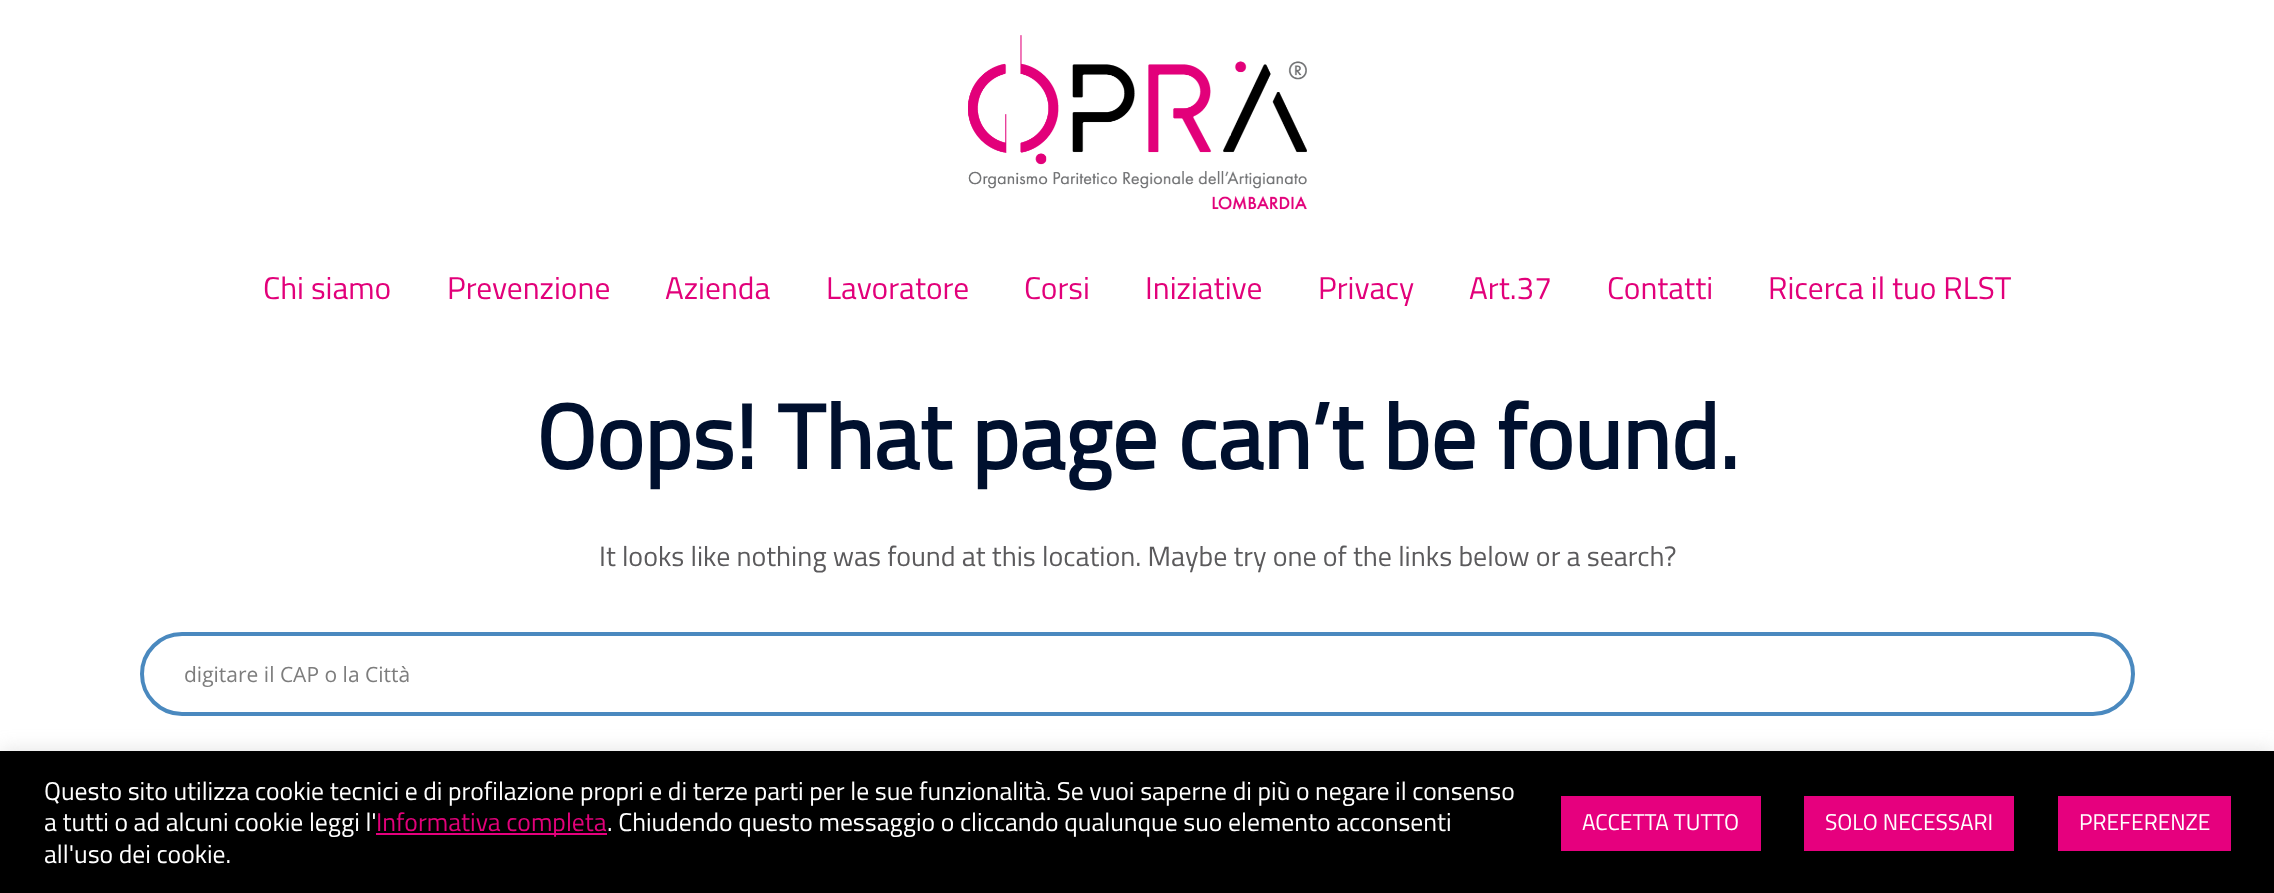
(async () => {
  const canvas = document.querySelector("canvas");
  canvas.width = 2274;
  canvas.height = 893;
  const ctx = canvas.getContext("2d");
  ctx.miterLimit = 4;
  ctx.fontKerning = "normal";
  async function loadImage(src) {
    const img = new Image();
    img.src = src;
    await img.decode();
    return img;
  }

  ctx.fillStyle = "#ffffff";
  ctx.fillRect(0, 0, 2274, 893);
  ctx.drawImage(await loadImage("img/1.png"), 968, 35, 339, 175);
  ctx.beginPath();
  ctx.roundRect(142, 634, 1991, 80, 40);
  ctx.strokeStyle = "#4a89bf";
  ctx.lineWidth = 4;
  ctx.stroke();
  ctx.fillStyle = "rgba(172, 171, 171, 0.3)";
  ctx.filter = "blur(9px)";
  ctx.beginPath();
  ctx.rect(0, 749, 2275, 144);
  ctx.fill();
  ctx.filter = "none";
  for (const [x, y, w, h, color] of [
    [0, 751, 2274, 142, "#000000"],
    [376, 833, 231, 2, "#e6007e"],
    [1561, 796, 200, 55, "#e6007e"],
    [1804, 796, 210, 55, "#e6007e"],
    [2058, 796, 173, 55, "#e6007e"],
  ]) {
    ctx.fillStyle = color;
    ctx.fillRect(x, y, w, h);
  }
  ctx.font = "31.5px Titillium Web";
  ctx.fillStyle = "#e2007a";
  for (const [text, x, y] of [
    ["Chi siamo", 263, 299],
    ["Prevenzione", 447, 299],
    ["Azienda", 665, 299],
    ["Lavoratore", 826, 299],
    ["Corsi", 1024, 299],
    ["Iniziative", 1145, 299],
    ["Privacy", 1318, 299],
    ["Art.37", 1469, 299],
    ["Contatti", 1607, 299],
    ["Ricerca il tuo RLST", 1768, 299],
  ]) {
    ctx.fillText(text, x, y);
  }
  ctx.font = "bold 91px Titillium Web";
  ctx.fillStyle = "#00102e";
  ctx.fillText("Oops! That page can’t be found.", 536, 469);
  ctx.font = "28px Titillium Web";
  ctx.fillStyle = "#5b5a5c";
  ctx.fillText("It looks like nothing was found at this location. Maybe try one of the links below or a search?", 599, 566);
  ctx.font = "21px Open Sans";
  ctx.fillStyle = "#7d7d7d";
  ctx.fillText("digitare il CAP o la Città", 184, 682);
  ctx.font = "25.67px Titillium Web";
  ctx.fillStyle = "#ffffff";
  ctx.fillText("Questo sito utilizza cookie tecnici e di profilazione propri e di terze parti per le sue funzionalità. Se vuoi saperne di più o negare il consenso", 44, 800);
  ctx.fillText("a tutti o ad alcuni cookie leggi l'", 44, 831);
  ctx.fillStyle = "#e2007a";
  ctx.fillText("Informativa completa", 376, 831);
  ctx.fillStyle = "#ffffff";
  ctx.fillText(". Chiudendo questo messaggio o cliccando qualunque suo elemento acconsenti", 607, 831);
  ctx.fillText("all'uso dei cookie.", 44, 863);
  ctx.font = "22.75px Titillium Web";
  for (const [text, x, y] of [
    ["ACCETTA TUTTO", 1582, 830],
    ["SOLO NECESSARI", 1825, 830],
    ["PREFERENZE", 2079, 830],
  ]) {
    ctx.fillText(text, x, y);
  }
})();
